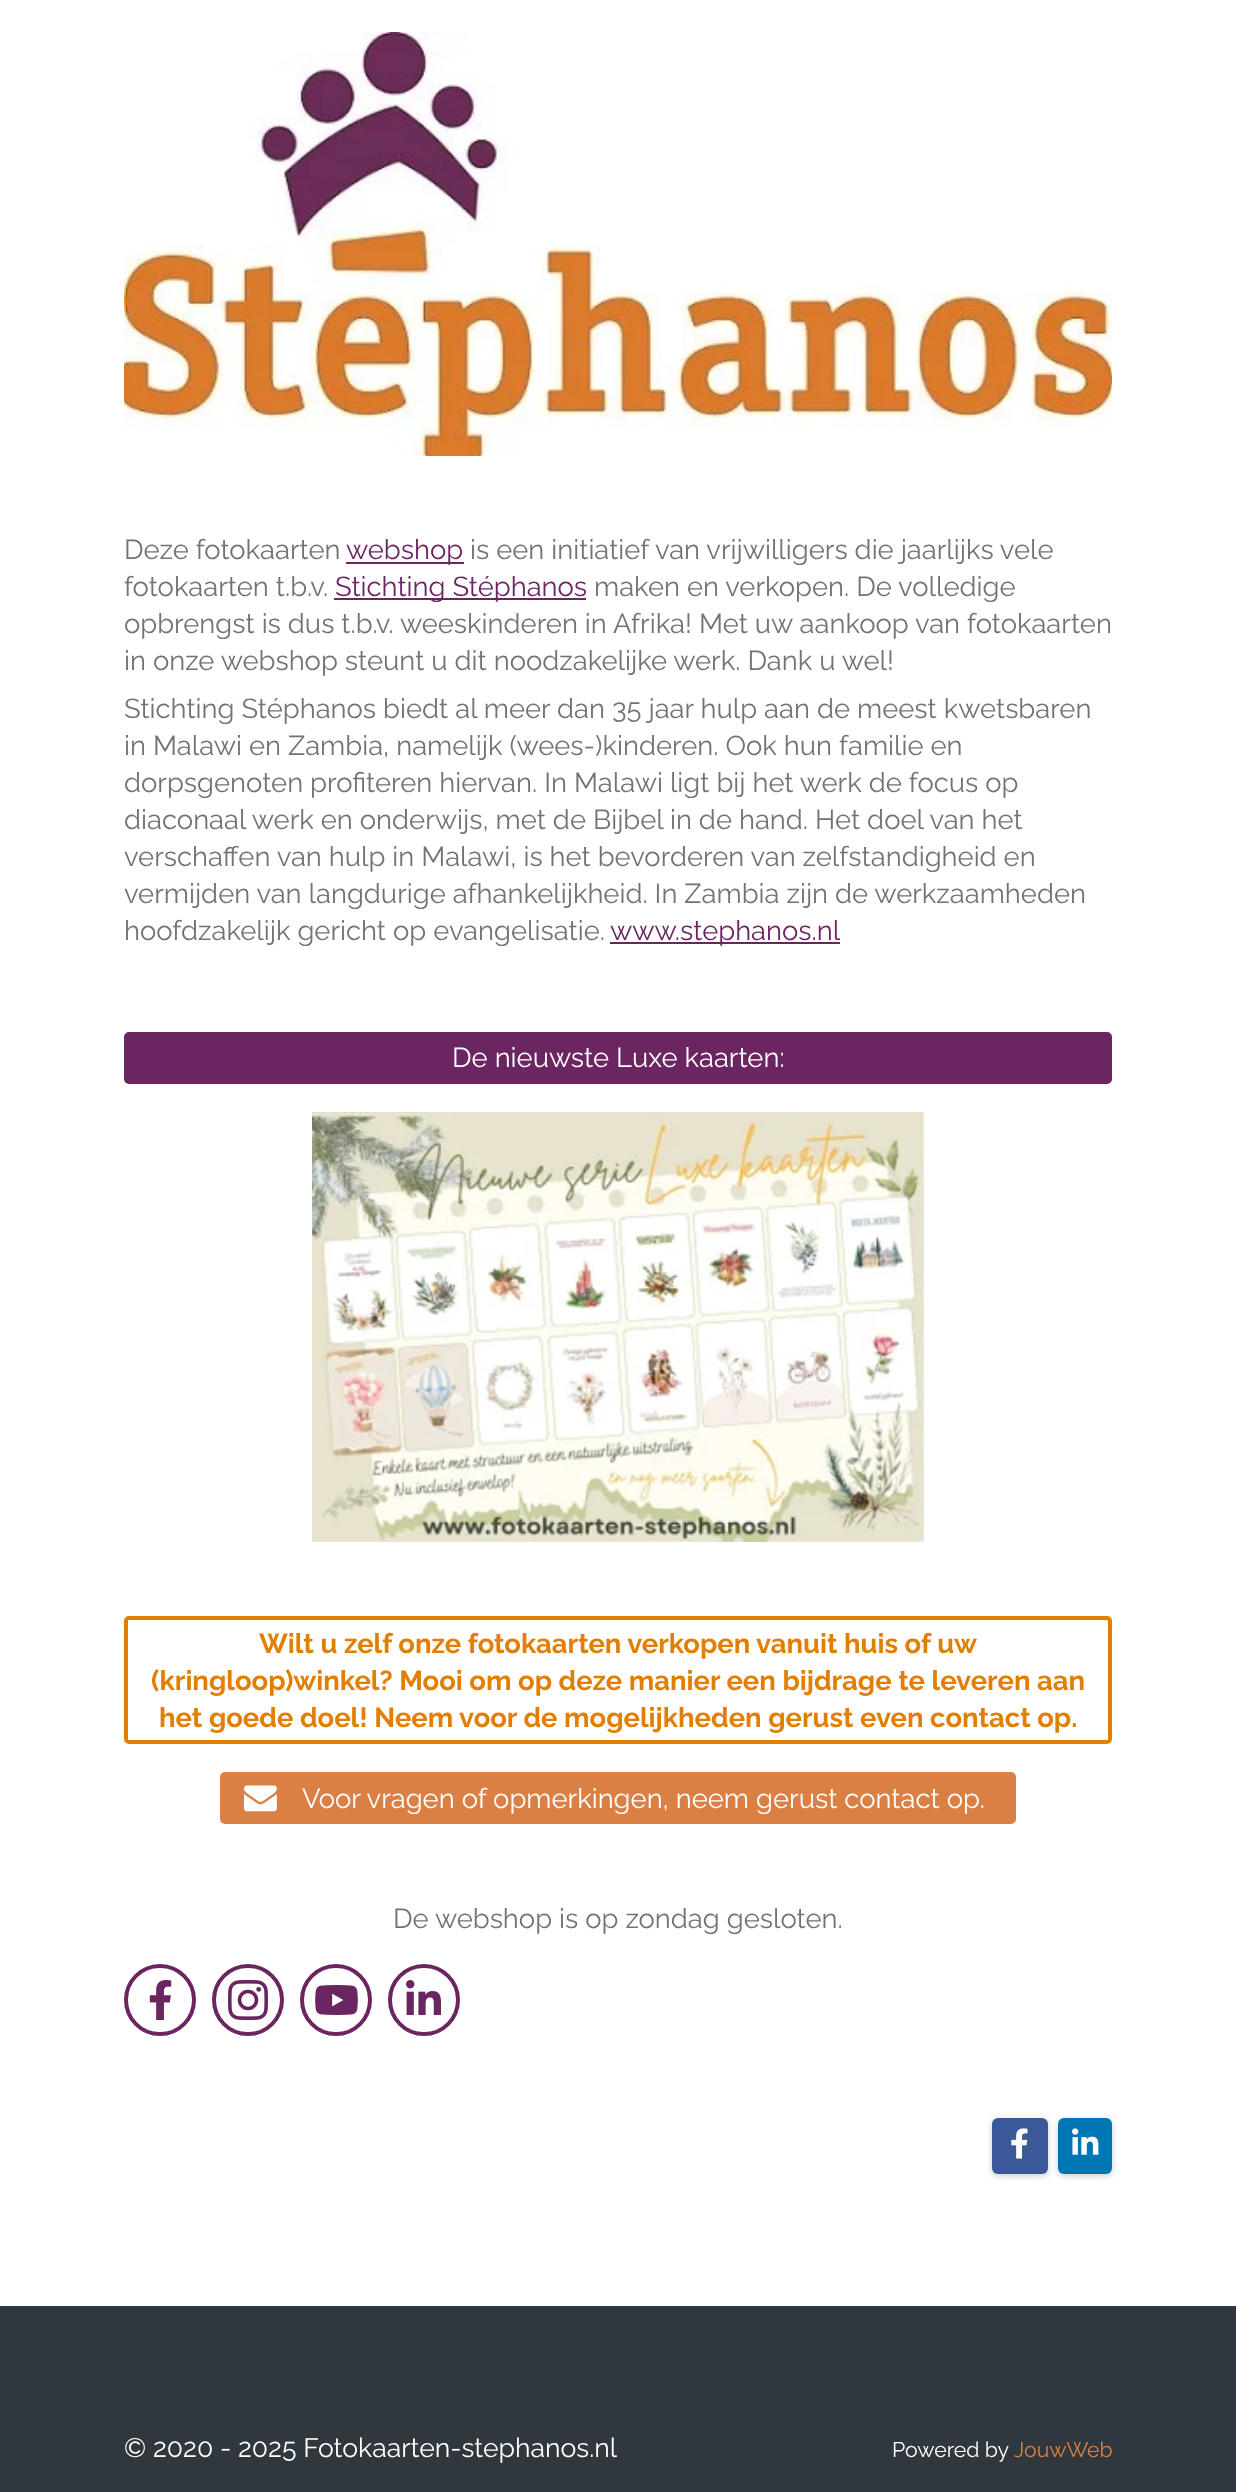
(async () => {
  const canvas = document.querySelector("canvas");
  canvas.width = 1236;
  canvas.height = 2492;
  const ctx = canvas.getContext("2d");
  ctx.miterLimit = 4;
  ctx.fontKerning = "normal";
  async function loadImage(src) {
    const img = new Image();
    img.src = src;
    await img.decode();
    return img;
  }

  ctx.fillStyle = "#ffffff";
  ctx.fillRect(0, 0, 1236, 2492);
  ctx.drawImage(await loadImage("img/1.png"), 124, 32, 988, 424);
  for (const [x, y, w, h, color] of [
    [346, 562, 118, 2, "#6b2561"],
    [334, 598, 252, 2, "#6b2561"],
    [610, 942, 230, 2, "#6b2561"],
  ]) {
    ctx.fillStyle = color;
    ctx.fillRect(x, y, w, h);
  }
  ctx.beginPath();
  ctx.roundRect(124, 1032, 988, 52, 5);
  ctx.fill();
  ctx.drawImage(await loadImage("img/2.png"), 312, 1112, 612, 430);
  ctx.beginPath();
  ctx.roundRect(126, 1618, 984, 124, 3);
  ctx.strokeStyle = "#e27e00";
  ctx.lineWidth = 4;
  ctx.stroke();
  ctx.fillStyle = "#da8044";
  ctx.beginPath();
  ctx.roundRect(220, 1772, 796, 52, 5);
  ctx.fill();
  ctx.drawImage(await loadImage("img/3.png"), 244, 1785, 33, 27);
  ctx.beginPath();
  ctx.arc(160, 2000, 34, 0, Math.PI * 2);
  ctx.strokeStyle = "#6b2561";
  ctx.stroke();
  ctx.drawImage(await loadImage("img/4.png"), 149, 1980, 23, 40);
  ctx.beginPath();
  ctx.arc(248, 2000, 34, 0, Math.PI * 2);
  ctx.stroke();
  ctx.drawImage(await loadImage("img/5.png"), 228, 1980, 40, 40);
  ctx.beginPath();
  ctx.arc(336, 2000, 34, 0, Math.PI * 2);
  ctx.stroke();
  ctx.drawImage(await loadImage("img/6.png"), 315, 1985, 43, 30);
  ctx.beginPath();
  ctx.arc(424, 2000, 34, 0, Math.PI * 2);
  ctx.stroke();
  ctx.drawImage(await loadImage("img/7.png"), 406, 1980, 35, 35);
  ctx.fillStyle = "rgba(0, 0, 0, 0.2)";
  ctx.filter = "blur(3px)";
  ctx.beginPath();
  ctx.roundRect(992, 2120, 56, 56, 6);
  ctx.fill();
  ctx.filter = "none";
  ctx.fillStyle = "#3b5998";
  ctx.beginPath();
  ctx.roundRect(992, 2118, 56, 56, 6);
  ctx.fill();
  ctx.drawImage(await loadImage("img/8.png"), 1011, 2128, 17, 31);
  ctx.fillStyle = "rgba(0, 0, 0, 0.2)";
  ctx.filter = "blur(3px)";
  ctx.beginPath();
  ctx.roundRect(1058, 2120, 54, 56, 6);
  ctx.fill();
  ctx.filter = "none";
  ctx.fillStyle = "#0077b5";
  ctx.beginPath();
  ctx.roundRect(1058, 2118, 54, 56, 6);
  ctx.fill();
  ctx.drawImage(await loadImage("img/9.png"), 1072, 2128, 27, 27);
  ctx.fillStyle = "#30383d";
  ctx.fillRect(0, 2306, 1236, 186);
  ctx.font = "27.4px Raleway";
  ctx.fillStyle = "#737373";
  ctx.fillText("Deze fotokaarten", 124, 559);
  ctx.fillStyle = "#6b2561";
  ctx.fillText("webshop", 346, 559);
  ctx.fillStyle = "#737373";
  ctx.fillText("is een initiatief van vrijwilligers die jaarlijks vele", 470, 559);
  ctx.fillText("fotokaarten t.b.v.", 124, 596);
  ctx.fillStyle = "#6b2561";
  ctx.fillText("Stichting Stéphanos", 335, 596);
  ctx.fillStyle = "#737373";
  for (const [text, x, y] of [
    ["maken en verkopen. De volledige", 594, 596],
    ["opbrengst is dus t.b.v. weeskinderen in Afrika! Met uw aankoop van fotokaarten", 124, 633],
    ["in onze webshop steunt u dit noodzakelijke werk. Dank u wel!", 124, 670],
    ["Stichting Stéphanos biedt al meer dan 35 jaar hulp aan de meest kwetsbaren", 124, 718],
    ["in Malawi en Zambia, namelijk (wees-)kinderen. Ook hun familie en", 124, 755],
    ["dorpsgenoten profiteren hiervan. In Malawi ligt bij het werk de focus op", 124, 792],
    ["diaconaal werk en onderwijs, met de Bijbel in de hand. Het doel van het", 124, 829],
    ["verschaffen van hulp in Malawi, is het bevorderen van zelfstandigheid en", 124, 866],
    ["vermijden van langdurige afhankelijkheid. In Zambia zijn de werkzaamheden", 124, 903],
    ["hoofdzakelijk gericht op evangelisatie.", 124, 940],
  ]) {
    ctx.fillText(text, x, y);
  }
  ctx.fillStyle = "#6b2561";
  ctx.fillText("www.stephanos.nl", 610, 940);
  ctx.fillStyle = "#ffffff";
  ctx.fillText("De nieuwste Luxe kaarten:", 452, 1067);
  ctx.font = "bold 27.4px Raleway";
  ctx.fillStyle = "#e27e00";
  for (const [text, x, y] of [
    ["Wilt u zelf onze fotokaarten verkopen vanuit huis of uw", 259, 1653],
    ["(kringloop)winkel? Mooi om op deze manier een bijdrage te leveren aan", 151, 1690],
    ["het goede doel! Neem voor de mogelijkheden gerust even contact op.", 159, 1727],
  ]) {
    ctx.fillText(text, x, y);
  }
  ctx.font = "27.4px Raleway";
  ctx.fillStyle = "#ffffff";
  ctx.fillText("Voor vragen of opmerkingen, neem gerust contact op.", 302, 1808);
  ctx.fillStyle = "#737373";
  ctx.fillText("De webshop is op zondag gesloten.", 393, 1928);
  ctx.font = "26.6px Raleway";
  ctx.fillStyle = "#ffffff";
  ctx.fillText("© 2020 - 2025 Fotokaarten-stephanos.nl", 124, 2457);
  ctx.font = "21.25px Raleway";
  ctx.fillText("Powered by", 892, 2457);
  ctx.fillStyle = "#da8044";
  ctx.fillText("JouwWeb", 1014, 2457);
})();
